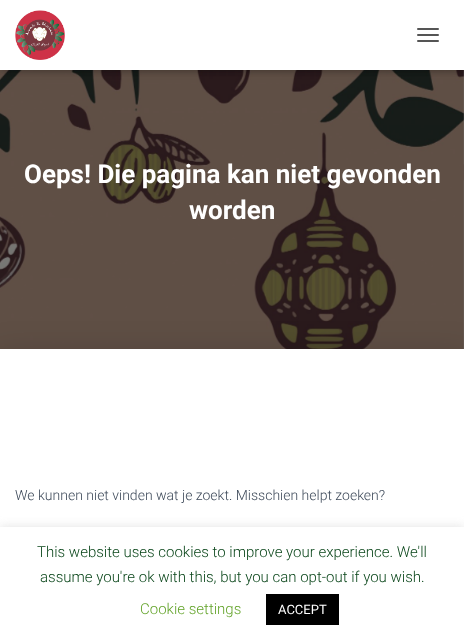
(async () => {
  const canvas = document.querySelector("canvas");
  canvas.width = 464;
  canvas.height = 642;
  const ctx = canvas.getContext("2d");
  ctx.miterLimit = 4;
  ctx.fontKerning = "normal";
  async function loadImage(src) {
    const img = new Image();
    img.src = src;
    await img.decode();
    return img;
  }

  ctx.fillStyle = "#ffffff";
  ctx.fillRect(0, 0, 464, 642);
  ctx.drawImage(await loadImage("img/1.png"), 463, 70, 1, 279);
  ctx.drawImage(await loadImage("img/3.png"), 0, 70, 464, 279);
  ctx.fillStyle = "rgba(0, 0, 0, 0.5)";
  ctx.fillRect(0, 70, 464, 279);
  ctx.fillStyle = "rgba(0, 0, 0, 0.1)";
  ctx.filter = "blur(2.5px)";
  ctx.beginPath();
  ctx.rect(2, 6, 460, 66);
  ctx.fill();
  ctx.filter = "none";
  ctx.fillStyle = "rgba(0, 0, 0, 0.12)";
  ctx.filter = "blur(5px)";
  ctx.beginPath();
  ctx.rect(0, 1, 464, 70);
  ctx.fill();
  ctx.filter = "none";
  ctx.fillStyle = "rgba(0, 0, 0, 0.42)";
  ctx.filter = "blur(5px)";
  ctx.beginPath();
  ctx.rect(6, 7, 452, 58);
  ctx.fill();
  ctx.filter = "none";
  ctx.fillStyle = "#ffffff";
  ctx.fillRect(0, 0, 464, 70);
  ctx.drawImage(await loadImage("img/2.png"), 15, 10, 50, 50);
  ctx.fillStyle = "#555555";
  ctx.beginPath();
  ctx.roundRect(417, 28, 22, 2, 1);
  ctx.fill();
  ctx.beginPath();
  ctx.roundRect(417, 34, 22, 2, 1);
  ctx.fill();
  ctx.beginPath();
  ctx.roundRect(417, 40, 22, 2, 1);
  ctx.fill();
  ctx.fillStyle = "rgba(0, 0, 0, 0.12)";
  ctx.filter = "blur(15px)";
  ctx.beginPath();
  ctx.rect(-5, 350, 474, 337);
  ctx.fill();
  ctx.filter = "none";
  ctx.fillStyle = "#ffffff";
  ctx.fillRect(0, 349, 464, 178);
  ctx.fillStyle = "rgba(172, 171, 171, 0.3)";
  ctx.filter = "blur(5px)";
  ctx.beginPath();
  ctx.rect(0, 526, 464, 115);
  ctx.fill();
  ctx.filter = "none";
  ctx.fillStyle = "#ffffff";
  ctx.fillRect(0, 527, 464, 115);
  ctx.fillStyle = "#000000";
  ctx.fillRect(266, 594, 73, 31);
  ctx.font = "bold 26px Roboto";
  ctx.fillStyle = "#ffffff";
  ctx.fillText("Oeps! Die pagina kan niet gevonden", 24, 183);
  ctx.fillText("worden", 189, 219);
  ctx.font = "300 14px Roboto";
  ctx.fillStyle = "#3c4858";
  ctx.fillText("We kunnen niet vinden wat je zoekt. Misschien helpt zoeken?", 15, 500);
  ctx.font = "300 15px Roboto";
  ctx.fillStyle = "#0a461a";
  ctx.fillText("This website uses cookies to improve your experience. We'll", 37, 557);
  ctx.fillText("assume you're ok with this, but you can opt-out if you wish.", 40, 582);
  ctx.fillStyle = "#62a329";
  ctx.fillText("Cookie settings", 140, 614);
  ctx.font = "13px Roboto";
  ctx.fillStyle = "#ffffff";
  ctx.fillText("ACCEPT", 278, 614);
})();
